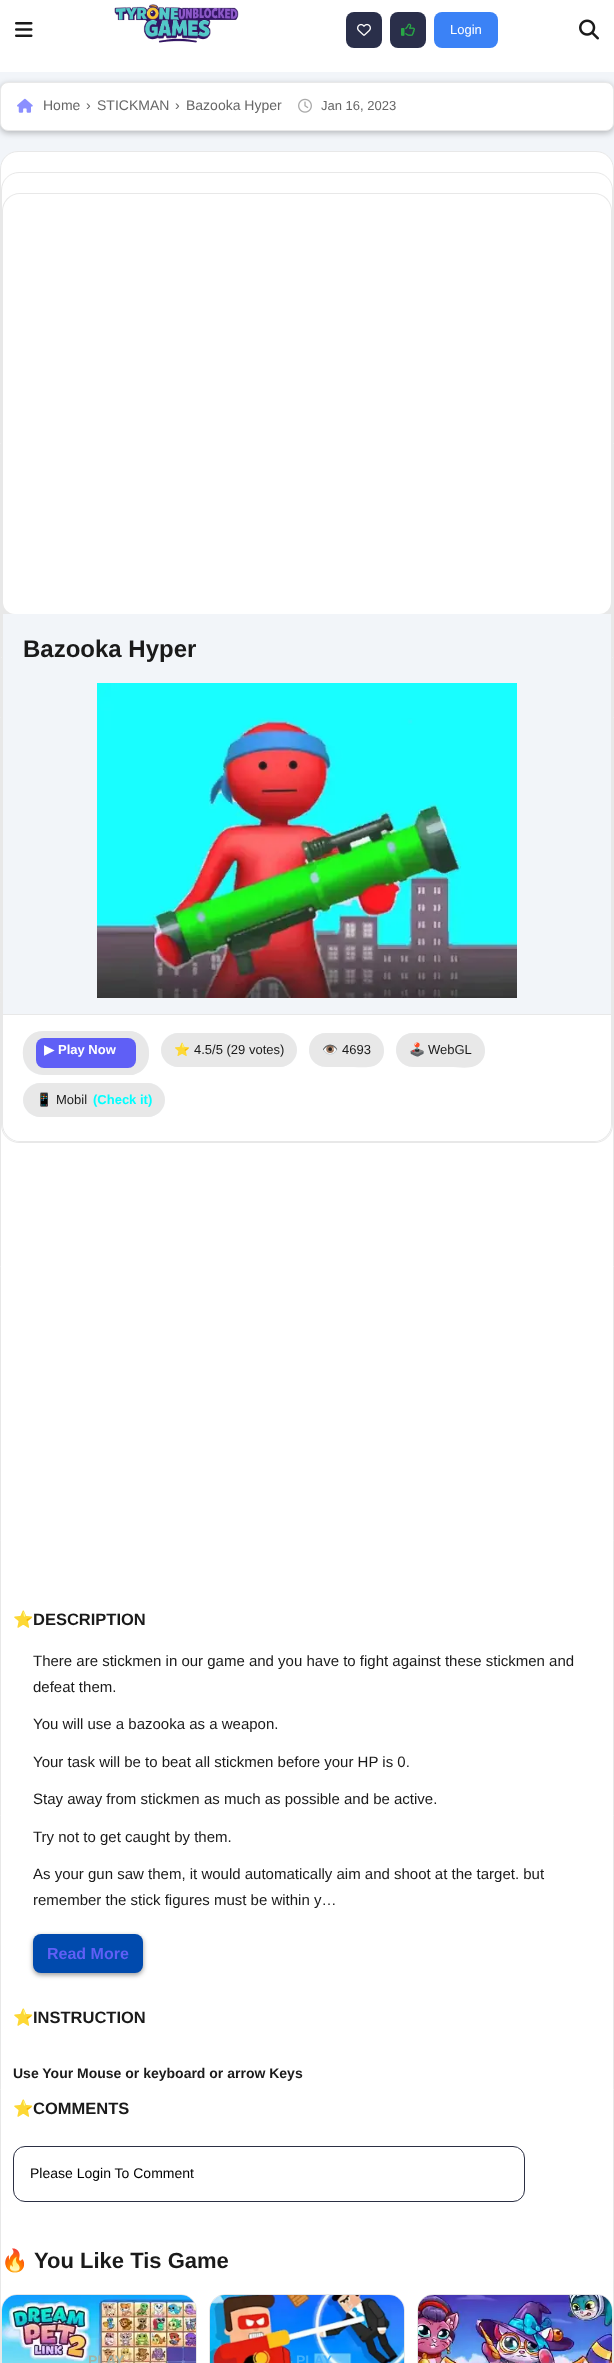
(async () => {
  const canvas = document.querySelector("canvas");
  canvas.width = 614;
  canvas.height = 2363;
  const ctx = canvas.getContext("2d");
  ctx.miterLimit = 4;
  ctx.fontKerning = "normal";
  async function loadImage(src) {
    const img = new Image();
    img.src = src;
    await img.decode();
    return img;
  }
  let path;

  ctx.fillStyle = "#f2f5f9";
  ctx.fillRect(0, 0, 614, 2363);
  ctx.fillStyle = "#ffffff";
  ctx.fillRect(0, 0, 614, 72);
  ctx.drawImage(await loadImage("img/1.png"), 15, 22, 18, 15);
  ctx.drawImage(await loadImage("img/2.png"), 114, 4, 125, 39);
  ctx.fillStyle = "#2a2f4a";
  ctx.beginPath();
  ctx.roundRect(346, 12, 36, 36, 8);
  ctx.fill();
  ctx.drawImage(await loadImage("img/3.png"), 357, 23, 14, 13);
  ctx.beginPath();
  ctx.roundRect(390, 12, 36, 36, 8);
  ctx.fill();
  ctx.drawImage(await loadImage("img/4.png"), 401, 23, 14, 13);
  ctx.fillStyle = "#3b82f6";
  ctx.beginPath();
  ctx.roundRect(434, 12, 64, 36, 8);
  ctx.fill();
  ctx.drawImage(await loadImage("img/5.png"), 579, 19, 20, 21);
  ctx.fillStyle = "rgba(0, 0, 0, 0.25)";
  ctx.filter = "blur(3px)";
  ctx.beginPath();
  ctx.roundRect(0, 84, 614, 49, 8);
  ctx.fill();
  ctx.filter = "none";
  ctx.fillStyle = "#ffffff";
  ctx.beginPath();
  ctx.roundRect(0.5, 82.5, 613, 48, 7.5);
  ctx.fill();
  ctx.strokeStyle = "#e8e8e8";
  ctx.stroke();
  ctx.drawImage(await loadImage("img/6.png"), 17, 98, 16, 15);
  ctx.drawImage(await loadImage("img/7.png"), 298, 98, 14, 15);
  ctx.beginPath();
  ctx.roundRect(0.5, 151.5, 613, 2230, 17.5);
  ctx.fill();
  ctx.stroke();
  ctx.beginPath();
  ctx.roundRect(1.5, 172.5, 611, 970, 17.5);
  ctx.stroke();
  ctx.fillStyle = "#e8e8e8";
  path = new Path2D("M20 193C10 193 2 201 2 211V1124C2 1134 10 1142 20 1142H594C604 1142 612 1134 612 1124V211C612 201 604 193 594 193Z");
  ctx.fill(path);
  ctx.fillStyle = "#ffffff";
  ctx.beginPath();
  ctx.roundRect(3, 194, 608, 420, [17, 17, 12, 12]);
  ctx.fill();
  ctx.fillStyle = "#f2f5f9";
  ctx.beginPath();
  ctx.roundRect(3, 614, 608, 527, [0, 0, 17, 17]);
  ctx.fill();
  ctx.drawImage(await loadImage("img/8.png"), 97, 683, 420, 315);
  ctx.fillStyle = "#ffffff";
  ctx.beginPath();
  ctx.roundRect(3, 1014, 608, 127, [0, 0, 17, 17]);
  ctx.fill();
  ctx.fillStyle = "#e8e8e8";
  ctx.fillRect(3, 1014, 608, 1);
  ctx.fillStyle = "#f2f5f9";
  ctx.beginPath();
  ctx.roundRect(23, 1031, 126, 44, 20);
  ctx.fill();
  ctx.fillStyle = "#e8e8e8";
  path = new Path2D("M43 1031C16 1031 16 1074 43 1075H133C136 1074 138 1073 140 1072C156 1061 150 1031 129 1031Z");
  ctx.fill(path);
  ctx.fillStyle = "#5f5ff6";
  ctx.beginPath();
  ctx.roundRect(36, 1038, 100, 30, 8);
  ctx.fill();
  ctx.fillStyle = "#f2f5f9";
  ctx.beginPath();
  ctx.roundRect(161, 1033, 136, 34, 17);
  ctx.fill();
  ctx.fillStyle = "#e8e8e8";
  path = new Path2D("M178 1033C169 1033 161 1041 161 1050C161 1059 169 1067 178 1067H280C289 1067 297 1059 297 1050C297 1041 289 1033 280 1033Z");
  ctx.fill(path);
  ctx.fillStyle = "#f2f5f9";
  ctx.beginPath();
  ctx.roundRect(309, 1033, 75, 34, 17);
  ctx.fill();
  ctx.fillStyle = "#e8e8e8";
  path = new Path2D("M326 1033C304 1033 303 1066 326 1067H353C360 1067 367 1068 374 1066C391 1059 385 1033 367 1033Z");
  ctx.fill(path);
  ctx.fillStyle = "#f2f5f9";
  ctx.beginPath();
  ctx.roundRect(396, 1033, 89, 34, 17);
  ctx.fill();
  ctx.fillStyle = "#e8e8e8";
  path = new Path2D("M413 1033C391 1033 390 1066 413 1067H450C457 1067 468 1069 475 1066C492 1059 486 1033 468 1033Z");
  ctx.fill(path);
  ctx.fillStyle = "#f2f5f9";
  ctx.beginPath();
  ctx.roundRect(23, 1083, 142, 34, 17);
  ctx.fill();
  ctx.fillStyle = "#e8e8e8";
  path = new Path2D("M40 1083C31 1083 23 1091 23 1100C23 1109 31 1117 40 1117H148C157 1117 165 1109 165 1100C165 1091 157 1083 148 1083Z");
  ctx.fill(path);
  ctx.fillStyle = "rgba(0, 0, 0, 0.4)";
  ctx.filter = "blur(2.5px)";
  ctx.beginPath();
  ctx.roundRect(33, 1936, 110, 39, 8);
  ctx.fill();
  ctx.filter = "none";
  ctx.fillStyle = "#004aad";
  ctx.beginPath();
  ctx.roundRect(33, 1934, 110, 39, 8);
  ctx.fill();
  ctx.beginPath();
  ctx.roundRect(13.5, 2146.5, 511, 55, 11.5);
  ctx.strokeStyle = "#2b2f43";
  ctx.stroke();
  ctx.beginPath();
  ctx.roundRect(1.5, 2294.5, 195, 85, 15.5);
  ctx.strokeStyle = "#e8e8e8";
  ctx.stroke();
  ctx.drawImage(await loadImage("img/9.png"), 2, 2295, 194, 68);
  ctx.beginPath();
  ctx.roundRect(209.5, 2294.5, 195, 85, 15.5);
  ctx.stroke();
  ctx.drawImage(await loadImage("img/10.png"), 210, 2295, 194, 68);
  ctx.beginPath();
  ctx.roundRect(417.5, 2294.5, 195, 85, 15.5);
  ctx.stroke();
  ctx.drawImage(await loadImage("img/11.png"), 418, 2295, 194, 68);
  ctx.font = "13px Liberation Sans";
  ctx.fillStyle = "#ffffff";
  ctx.fillText("Login", 450, 34);
  ctx.font = "14px Liberation Sans";
  ctx.fillStyle = "#666666";
  for (const [text, x, y] of [
    ["Home", 43, 110],
    ["›", 86, 110],
    ["STICKMAN", 97, 110],
    ["›", 175, 110],
    ["Bazooka Hyper", 186, 110],
  ]) {
    ctx.fillText(text, x, y);
  }
  ctx.font = "13px Liberation Sans";
  ctx.fillText("Jan 16, 2023", 321, 110);
  ctx.font = "bold 24px Liberation Sans";
  ctx.fillStyle = "#1a1a1a";
  ctx.fillText("Bazooka Hyper", 23, 657);
  ctx.font = "bold 13px DejaVu Sans";
  ctx.fillStyle = "#ffffff";
  ctx.fillText("▶", 44, 1054);
  ctx.font = "bold 13px Liberation Sans";
  ctx.fillText("Play Now", 58, 1054);
  ctx.font = "13px Noto Color Emoji";
  ctx.fillStyle = "#1a1a1a";
  ctx.fillText("⭐", 174, 1054);
  ctx.font = "13px Liberation Sans";
  ctx.fillText("4.5/5 (29 votes)", 194, 1054);
  ctx.font = "13px Noto Color Emoji";
  ctx.fillText("👁️", 322, 1054);
  ctx.font = "13px Liberation Sans";
  ctx.fillText("4693", 342, 1054);
  ctx.font = "13px Noto Color Emoji";
  ctx.fillText("🕹️", 409, 1054);
  ctx.font = "13px Liberation Sans";
  ctx.fillText("WebGL", 428, 1054);
  ctx.font = "13px Noto Color Emoji";
  ctx.fillText("📱", 36, 1104);
  ctx.font = "13px Liberation Sans";
  ctx.fillText("Mobil", 56, 1104);
  ctx.font = "bold 13px Liberation Sans";
  ctx.fillStyle = "#00ffff";
  ctx.fillText("(Check it)", 93, 1104);
  ctx.font = "bold 16.5px Noto Color Emoji";
  ctx.fillStyle = "#1a1a1a";
  ctx.fillText("⭐", 13, 1625);
  ctx.font = "bold 16.5px Liberation Sans";
  ctx.fillText("DESCRIPTION", 33, 1625);
  ctx.font = "15px Liberation Sans";
  for (const [text, x, y] of [
    ["There are stickmen in our game and you have to fight against these stickmen and", 33, 1666],
    ["defeat them.", 33, 1692],
    ["You will use a bazooka as a weapon.", 33, 1729],
    ["Your task will be to beat all stickmen before your HP is 0.", 33, 1767],
    ["Stay away from stickmen as much as possible and be active.", 33, 1804],
    ["Try not to get caught by them.", 33, 1842],
    ["As your gun saw them, it would automatically aim and shoot at the target. but", 33, 1879],
    ["remember the stick figures must be within y…", 33, 1905],
  ]) {
    ctx.fillText(text, x, y);
  }
  ctx.font = "bold 16px Liberation Sans";
  ctx.fillStyle = "#5f5ff6";
  ctx.fillText("Read More", 47, 1959);
  ctx.font = "bold 16.5px Noto Color Emoji";
  ctx.fillStyle = "#1a1a1a";
  ctx.fillText("⭐", 13, 2023);
  ctx.font = "bold 16.5px Liberation Sans";
  ctx.fillText("INSTRUCTION", 33, 2023);
  ctx.font = "bold 14px Liberation Sans";
  ctx.fillText("Use Your Mouse or keyboard or arrow Keys", 13, 2078);
  ctx.font = "bold 16.5px Noto Color Emoji";
  ctx.fillText("⭐", 13, 2114);
  ctx.font = "bold 16.5px Liberation Sans";
  ctx.fillText("COMMENTS", 33, 2114);
  ctx.font = "14px Liberation Sans";
  ctx.fillStyle = "#000000";
  ctx.fillText("Please Login To Comment", 30, 2178);
  ctx.font = "bold 22px Noto Color Emoji";
  ctx.fillStyle = "#1a1a1a";
  ctx.fillText("🔥", 1, 2268);
  ctx.font = "bold 22px Liberation Sans";
  ctx.fillText("You Like Tis Game", 34, 2268);
  ctx.font = "bold 14px Liberation Sans";
  ctx.fillStyle = "#9fb3a9";
  ctx.fillText("PLAY", 88, 2365);
  ctx.fillStyle = "#41b0fc";
  ctx.fillText("PLAY", 296, 2365);
})();
